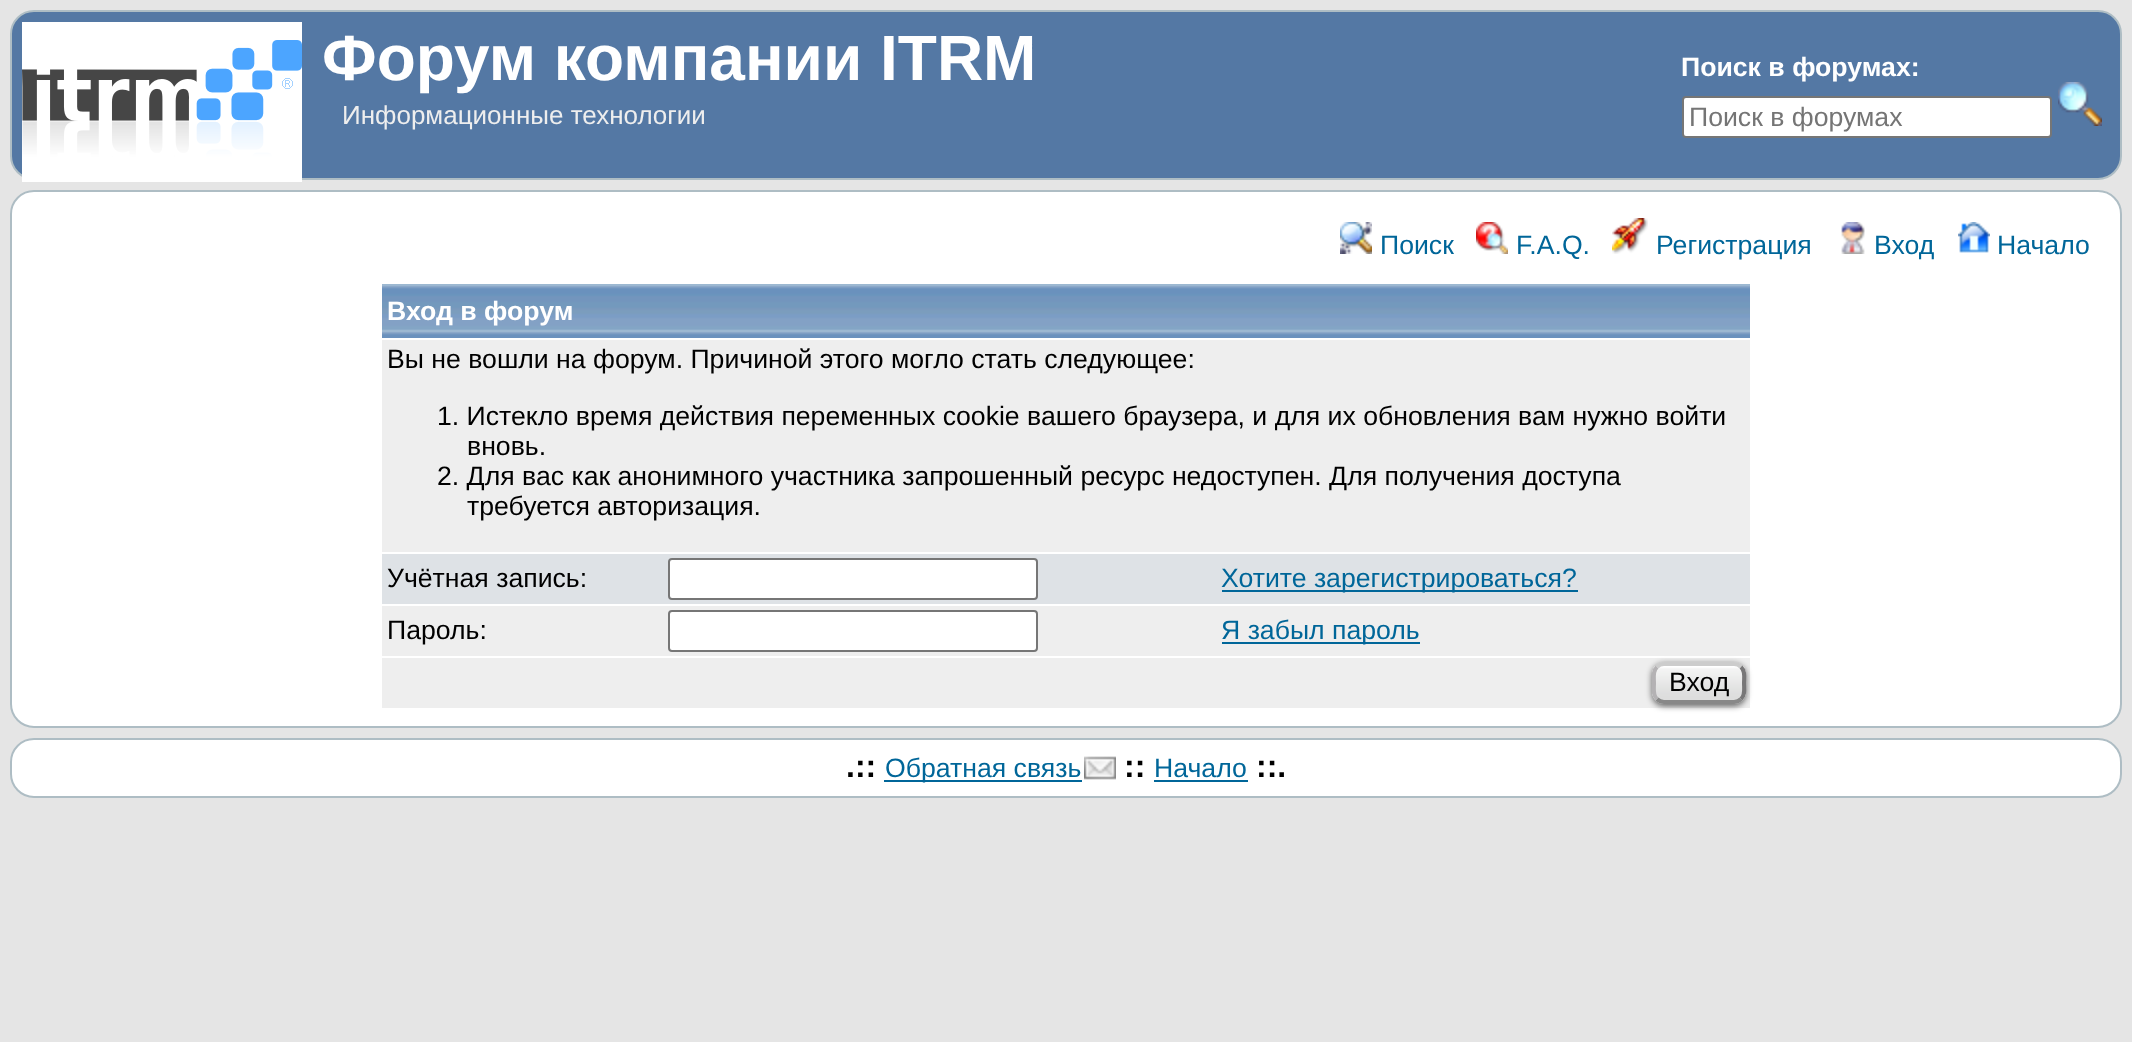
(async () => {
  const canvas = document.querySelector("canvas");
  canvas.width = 2132;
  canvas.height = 1042;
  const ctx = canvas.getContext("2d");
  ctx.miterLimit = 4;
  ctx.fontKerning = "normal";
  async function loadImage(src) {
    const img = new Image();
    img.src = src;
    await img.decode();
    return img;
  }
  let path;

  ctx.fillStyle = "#e5e5e5";
  ctx.fillRect(0, 0, 2132, 1042);
  ctx.fillStyle = "#5478a4";
  ctx.beginPath();
  ctx.roundRect(11, 11, 2110, 168, 23);
  ctx.fill();
  ctx.strokeStyle = "#aebdc4";
  ctx.lineWidth = 2;
  ctx.stroke();
  ctx.drawImage(await loadImage("img/1.png"), 22, 22, 280, 160);
  ctx.fillStyle = "#ffffff";
  ctx.beginPath();
  ctx.roundRect(1683, 97, 368, 40, 3);
  ctx.fill();
  ctx.strokeStyle = "#767676";
  ctx.stroke();
  ctx.drawImage(await loadImage("img/2.png"), 2058, 82, 44, 44);
  ctx.beginPath();
  ctx.roundRect(11, 191, 2110, 536, 23);
  ctx.fill();
  ctx.strokeStyle = "#aebdc4";
  ctx.stroke();
  ctx.drawImage(await loadImage("img/3.png"), 1340, 222, 32, 32);
  ctx.drawImage(await loadImage("img/4.png"), 1476, 222, 32, 32);
  ctx.drawImage(await loadImage("img/5.png"), 1612, 218, 36, 36);
  ctx.drawImage(await loadImage("img/6.png"), 1841, 222, 24, 32);
  ctx.drawImage(await loadImage("img/7.png"), 1958, 222, 32, 31);
  ctx.drawImage(await loadImage("img/8.png"), 382, 284, 1368, 54);
  ctx.fillStyle = "#eeeeee";
  ctx.fillRect(382, 340, 1368, 212);
  ctx.fillStyle = "#dee2e6";
  ctx.fillRect(382, 554, 1368, 50);
  ctx.fillStyle = "#ffffff";
  ctx.beginPath();
  ctx.roundRect(669, 559, 368, 40, 3);
  ctx.fill();
  ctx.strokeStyle = "#767676";
  ctx.stroke();
  ctx.fillStyle = "#006699";
  ctx.fillRect(1222, 590, 356, 2);
  ctx.fillStyle = "#eeeeee";
  ctx.fillRect(382, 606, 1368, 50);
  ctx.fillStyle = "#ffffff";
  ctx.beginPath();
  ctx.roundRect(669, 611, 368, 40, 3);
  ctx.fill();
  ctx.stroke();
  ctx.fillStyle = "#006699";
  ctx.fillRect(1222, 642, 198, 2);
  ctx.fillStyle = "#eeeeee";
  ctx.fillRect(382, 658, 1368, 50);
  ctx.fillStyle = "rgba(0, 0, 0, 0.6)";
  ctx.filter = "blur(3px)";
  ctx.beginPath();
  ctx.roundRect(1652, 664, 94, 42, 12);
  ctx.fill();
  ctx.filter = "none";
  ctx.fillStyle = "#dddddd";
  ctx.beginPath();
  ctx.roundRect(1652, 662, 94, 42, 12);
  ctx.fill();
  ctx.drawImage(await loadImage("img/9.png"), 1652, 666, 94, 30);
  path = new Path2D("M1657 667C1659 665 1661.5 664 1664 664H1734C1736.5 664 1739 665 1741 667");
  ctx.strokeStyle = "#cccccc";
  ctx.lineWidth = 4;
  ctx.stroke(path);
  path = new Path2D("M1741 667C1745.5 671 1744 677.5 1744 683C1744 688.5 1745.5 695 1741 699");
  ctx.strokeStyle = "#787778";
  ctx.stroke(path);
  path = new Path2D("M1741 699C1739 701 1736.5 702 1734 702H1664C1661.5 702 1659 701 1657 699");
  ctx.strokeStyle = "#888888";
  ctx.stroke(path);
  path = new Path2D("M1657 699C1652.5 695 1654 688.5 1654 683C1654 677.5 1652.5 671 1657 667");
  ctx.strokeStyle = "#b4b2b4";
  ctx.stroke(path);
  ctx.fillStyle = "#ffffff";
  ctx.beginPath();
  ctx.roundRect(11, 739, 2110, 58, 23);
  ctx.fill();
  ctx.strokeStyle = "#aebdc4";
  ctx.lineWidth = 2;
  ctx.stroke();
  ctx.fillStyle = "#006699";
  ctx.fillRect(884, 780, 198, 2);
  ctx.drawImage(await loadImage("img/10.png"), 1084, 756, 32, 24);
  ctx.fillRect(1154, 780, 94, 2);
  ctx.font = "bold 64px Liberation Sans";
  ctx.fillStyle = "#ffffff";
  ctx.fillText("Форум компании ITRM", 322, 80);
  ctx.font = "bold 26.65px Liberation Sans";
  ctx.fillText("Поиск в форумах:", 1681, 76);
  ctx.font = "26.65px Liberation Sans";
  ctx.fillStyle = "#757575";
  ctx.fillText("Поиск в форумах", 1689, 126);
  ctx.font = "26px Liberation Sans";
  ctx.fillStyle = "#eeeeee";
  ctx.fillText("Информационные технологии", 342, 124);
  ctx.font = "26.65px Liberation Sans";
  ctx.fillStyle = "#006699";
  for (const [text, x, y] of [
    ["Поиск", 1380, 254],
    ["F.A.Q.", 1516, 254],
    ["Регистрация", 1656, 254],
    ["Вход", 1874, 254],
    ["Начало", 1997, 254],
  ]) {
    ctx.fillText(text, x, y);
  }
  ctx.font = "bold 26.65px Liberation Sans";
  ctx.fillStyle = "#ffffff";
  ctx.fillText("Вход в форум", 387, 320);
  ctx.font = "26.65px Liberation Sans";
  ctx.fillStyle = "#000000";
  for (const [text, x, y] of [
    ["Вы не вошли на форум. Причиной этого могло стать следующее:", 387, 368],
    ["1. Истекло время действия переменных cookie вашего браузера, и для их обновления вам нужно войти", 437, 425],
    ["вновь.", 467, 455],
    ["2. Для вас как анонимного участника запрошенный ресурс недоступен. Для получения доступа", 437, 485],
    ["требуется авторизация.", 467, 515],
    ["Учётная запись:", 387, 587],
  ]) {
    ctx.fillText(text, x, y);
  }
  ctx.fillStyle = "#006699";
  ctx.fillText("Хотите зарегистрироваться?", 1221, 587);
  ctx.fillStyle = "#000000";
  ctx.fillText("Пароль:", 387, 639);
  ctx.fillStyle = "#006699";
  ctx.fillText("Я забыл пароль", 1221, 639);
  ctx.fillStyle = "#000000";
  ctx.fillText("Вход", 1669, 691);
  ctx.font = "bold 32px Liberation Sans";
  ctx.fillText(".::", 846, 777);
  ctx.font = "26.65px Liberation Sans";
  ctx.fillStyle = "#006699";
  ctx.fillText("Обратная связь", 885, 777);
  ctx.font = "bold 32px Liberation Sans";
  ctx.fillStyle = "#000000";
  ctx.fillText("::", 1124, 777);
  ctx.font = "26.65px Liberation Sans";
  ctx.fillStyle = "#006699";
  ctx.fillText("Начало", 1154, 777);
  ctx.font = "bold 32px Liberation Sans";
  ctx.fillStyle = "#000000";
  ctx.fillText("::.", 1256, 777);
})();
